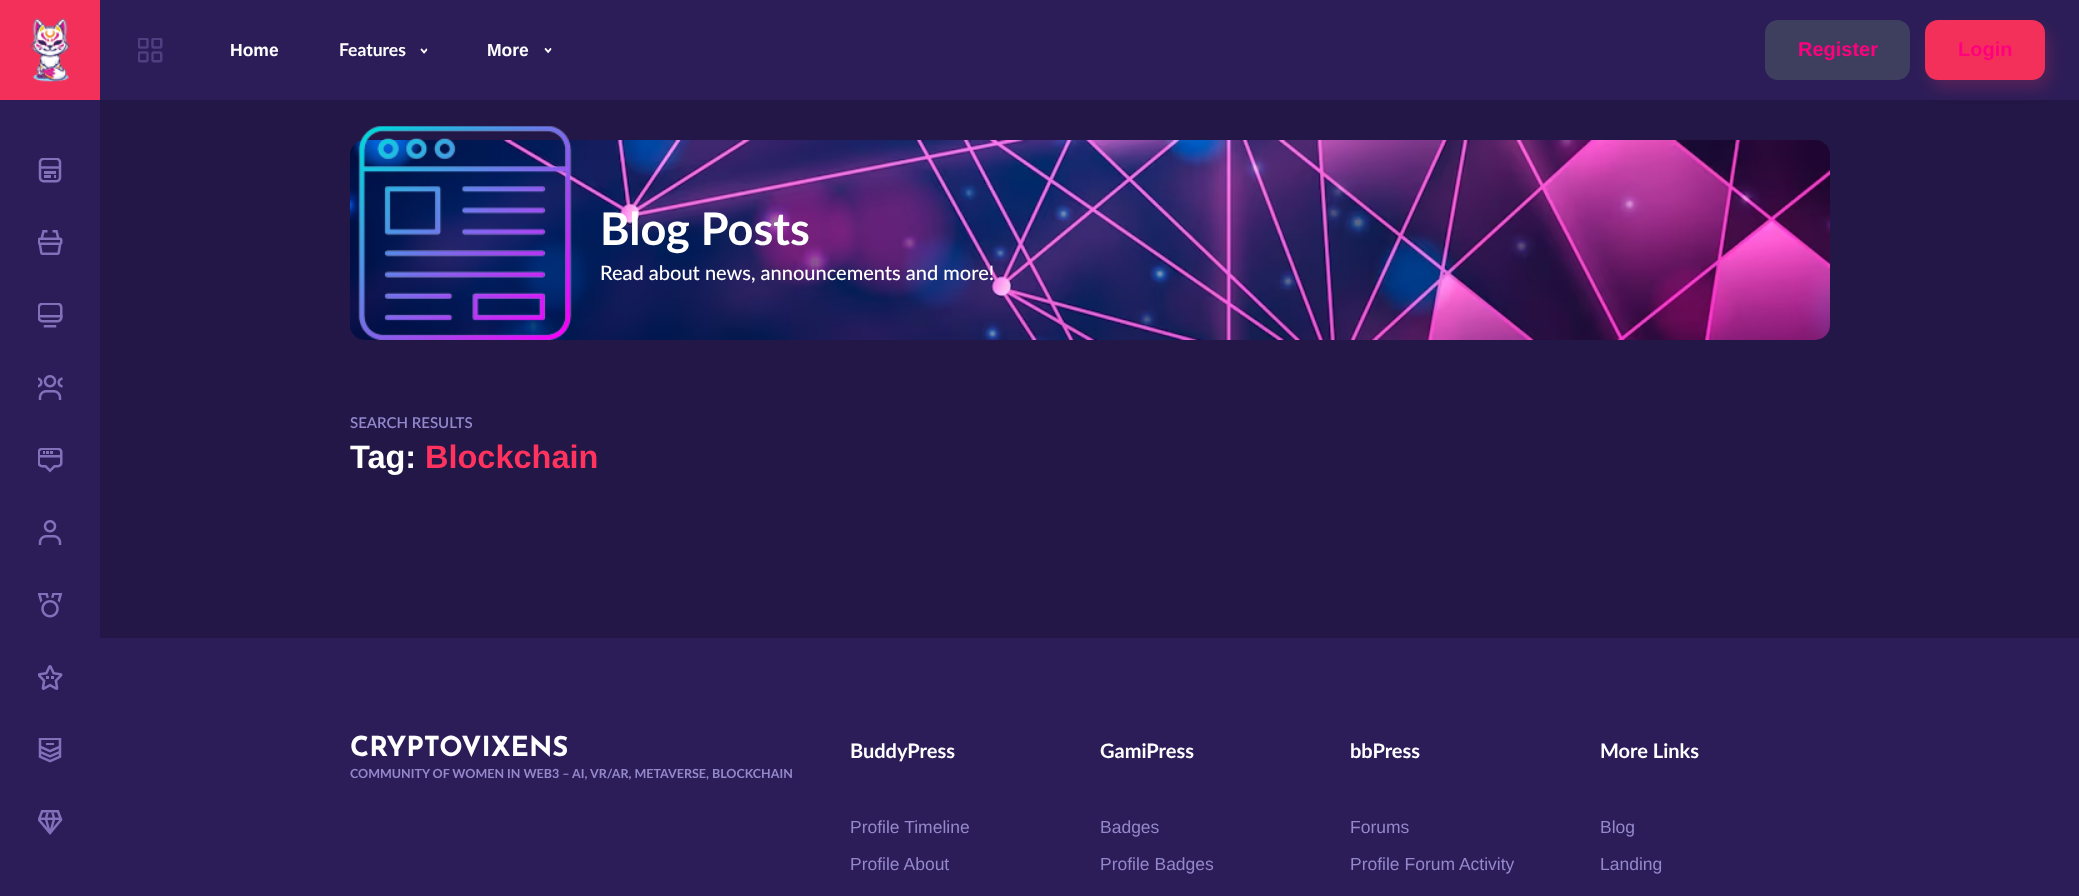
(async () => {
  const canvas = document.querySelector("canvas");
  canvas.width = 2079;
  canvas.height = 896;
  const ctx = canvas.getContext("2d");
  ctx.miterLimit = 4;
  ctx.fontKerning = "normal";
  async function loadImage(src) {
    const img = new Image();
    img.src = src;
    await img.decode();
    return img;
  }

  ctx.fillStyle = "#221746";
  ctx.fillRect(0, 0, 2079, 896);
  ctx.fillStyle = "#2c1d58";
  ctx.fillRect(100, 0, 1979, 100);
  ctx.fillStyle = "#f33059";
  ctx.fillRect(0, 0, 100, 100);
  ctx.drawImage(await loadImage("img/1.png"), 30, 18, 41, 64);
  ctx.drawImage(await loadImage("img/2.png"), 138, 38, 25, 25);
  ctx.drawImage(await loadImage("img/3.png"), 420, 48, 8, 6);
  ctx.drawImage(await loadImage("img/4.png"), 544, 48, 8, 6);
  ctx.fillStyle = "#3e3f5e";
  ctx.beginPath();
  ctx.roundRect(1765, 20, 145, 60, 13);
  ctx.fill();
  ctx.fillStyle = "rgba(243, 48, 89, 0.2)";
  ctx.filter = "blur(7.5px)";
  ctx.beginPath();
  ctx.roundRect(1930, 29, 120, 60, 13);
  ctx.fill();
  ctx.filter = "none";
  ctx.fillStyle = "#f33059";
  ctx.beginPath();
  ctx.roundRect(1925, 20, 120, 60, 13);
  ctx.fill();
  ctx.fillStyle = "#2c1d58";
  ctx.fillRect(0, 100, 100, 796);
  ctx.drawImage(await loadImage("img/5.png"), 38, 158, 24, 25);
  ctx.drawImage(await loadImage("img/6.png"), 38, 230, 25, 25);
  ctx.drawImage(await loadImage("img/7.png"), 38, 303, 25, 25);
  ctx.drawImage(await loadImage("img/8.png"), 38, 375, 25, 25);
  ctx.drawImage(await loadImage("img/9.png"), 38, 448, 25, 25);
  ctx.drawImage(await loadImage("img/10.png"), 38, 520, 24, 25);
  ctx.drawImage(await loadImage("img/11.png"), 38, 593, 25, 25);
  ctx.drawImage(await loadImage("img/12.png"), 38, 665, 25, 25);
  ctx.drawImage(await loadImage("img/13.png"), 38, 738, 24, 25);
  ctx.drawImage(await loadImage("img/14.png"), 38, 810, 25, 25);
  ctx.drawImage(await loadImage("img/15.png"), 350, 140, 1480, 200);
  ctx.drawImage(await loadImage("img/16.png"), 358, 126, 214, 214);
  ctx.fillRect(100, 638, 1979, 258);
  ctx.font = "bold 17.5px Liberation Sans";
  ctx.fillStyle = "#ffffff";
  ctx.fillText("Home", 230, 56);
  ctx.font = "bold 17.5px Lato";
  ctx.fillText("Features", 339, 56);
  ctx.font = "bold 17.5px Liberation Sans";
  ctx.fillText("More", 487, 56);
  ctx.font = "bold 20px Liberation Sans";
  ctx.fillStyle = "#ff007e";
  ctx.fillText("Register", 1798, 56);
  ctx.fillText("Login", 1958, 56);
  ctx.font = "bold 45px Lato";
  ctx.fillStyle = "#ffffff";
  ctx.fillText("Blog Posts", 600, 245);
  ctx.font = "500 20px Lato";
  ctx.fillText("Read about news, announcements and more!", 600, 280);
  ctx.font = "600 15px Lato";
  ctx.fillStyle = "#9388cc";
  ctx.fillText("SEARCH RESULTS", 350, 428);
  ctx.font = "bold 32.5px Liberation Sans";
  ctx.fillStyle = "#ffffff";
  ctx.fillText("Tag:", 350, 468);
  ctx.fillStyle = "#ff335e";
  ctx.fillText("Blockchain", 425, 468);
  ctx.font = "bold 27.5px Josefin Sans";
  ctx.fillStyle = "#ffffff";
  ctx.fillText("CRYPTOVIXENS", 350, 756);
  ctx.font = "bold 12.5px Lato";
  ctx.fillStyle = "#9388cc";
  ctx.fillText("COMMUNITY OF WOMEN IN WEB3 – AI, VR/AR, METAVERSE, BLOCKCHAIN", 350, 778);
  ctx.font = "bold 20px Lato";
  ctx.fillStyle = "#ffffff";
  ctx.fillText("BuddyPress", 850, 758);
  ctx.font = "17.5px Liberation Sans";
  ctx.fillStyle = "#9388cc";
  ctx.fillText("Profile Timeline", 850, 833);
  ctx.fillText("Profile About", 850, 870);
  ctx.font = "bold 20px Lato";
  ctx.fillStyle = "#ffffff";
  ctx.fillText("GamiPress", 1100, 758);
  ctx.font = "17.5px Liberation Sans";
  ctx.fillStyle = "#9388cc";
  ctx.fillText("Badges", 1100, 833);
  ctx.fillText("Profile Badges", 1100, 870);
  ctx.font = "bold 20px Lato";
  ctx.fillStyle = "#ffffff";
  ctx.fillText("bbPress", 1350, 758);
  ctx.font = "17.5px Liberation Sans";
  ctx.fillStyle = "#9388cc";
  ctx.fillText("Forums", 1350, 833);
  ctx.fillText("Profile Forum Activity", 1350, 870);
  ctx.font = "bold 20px Lato";
  ctx.fillStyle = "#ffffff";
  ctx.fillText("More Links", 1600, 758);
  ctx.font = "17.5px Liberation Sans";
  ctx.fillStyle = "#9388cc";
  ctx.fillText("Blog", 1600, 833);
  ctx.fillText("Landing", 1600, 870);
})();
